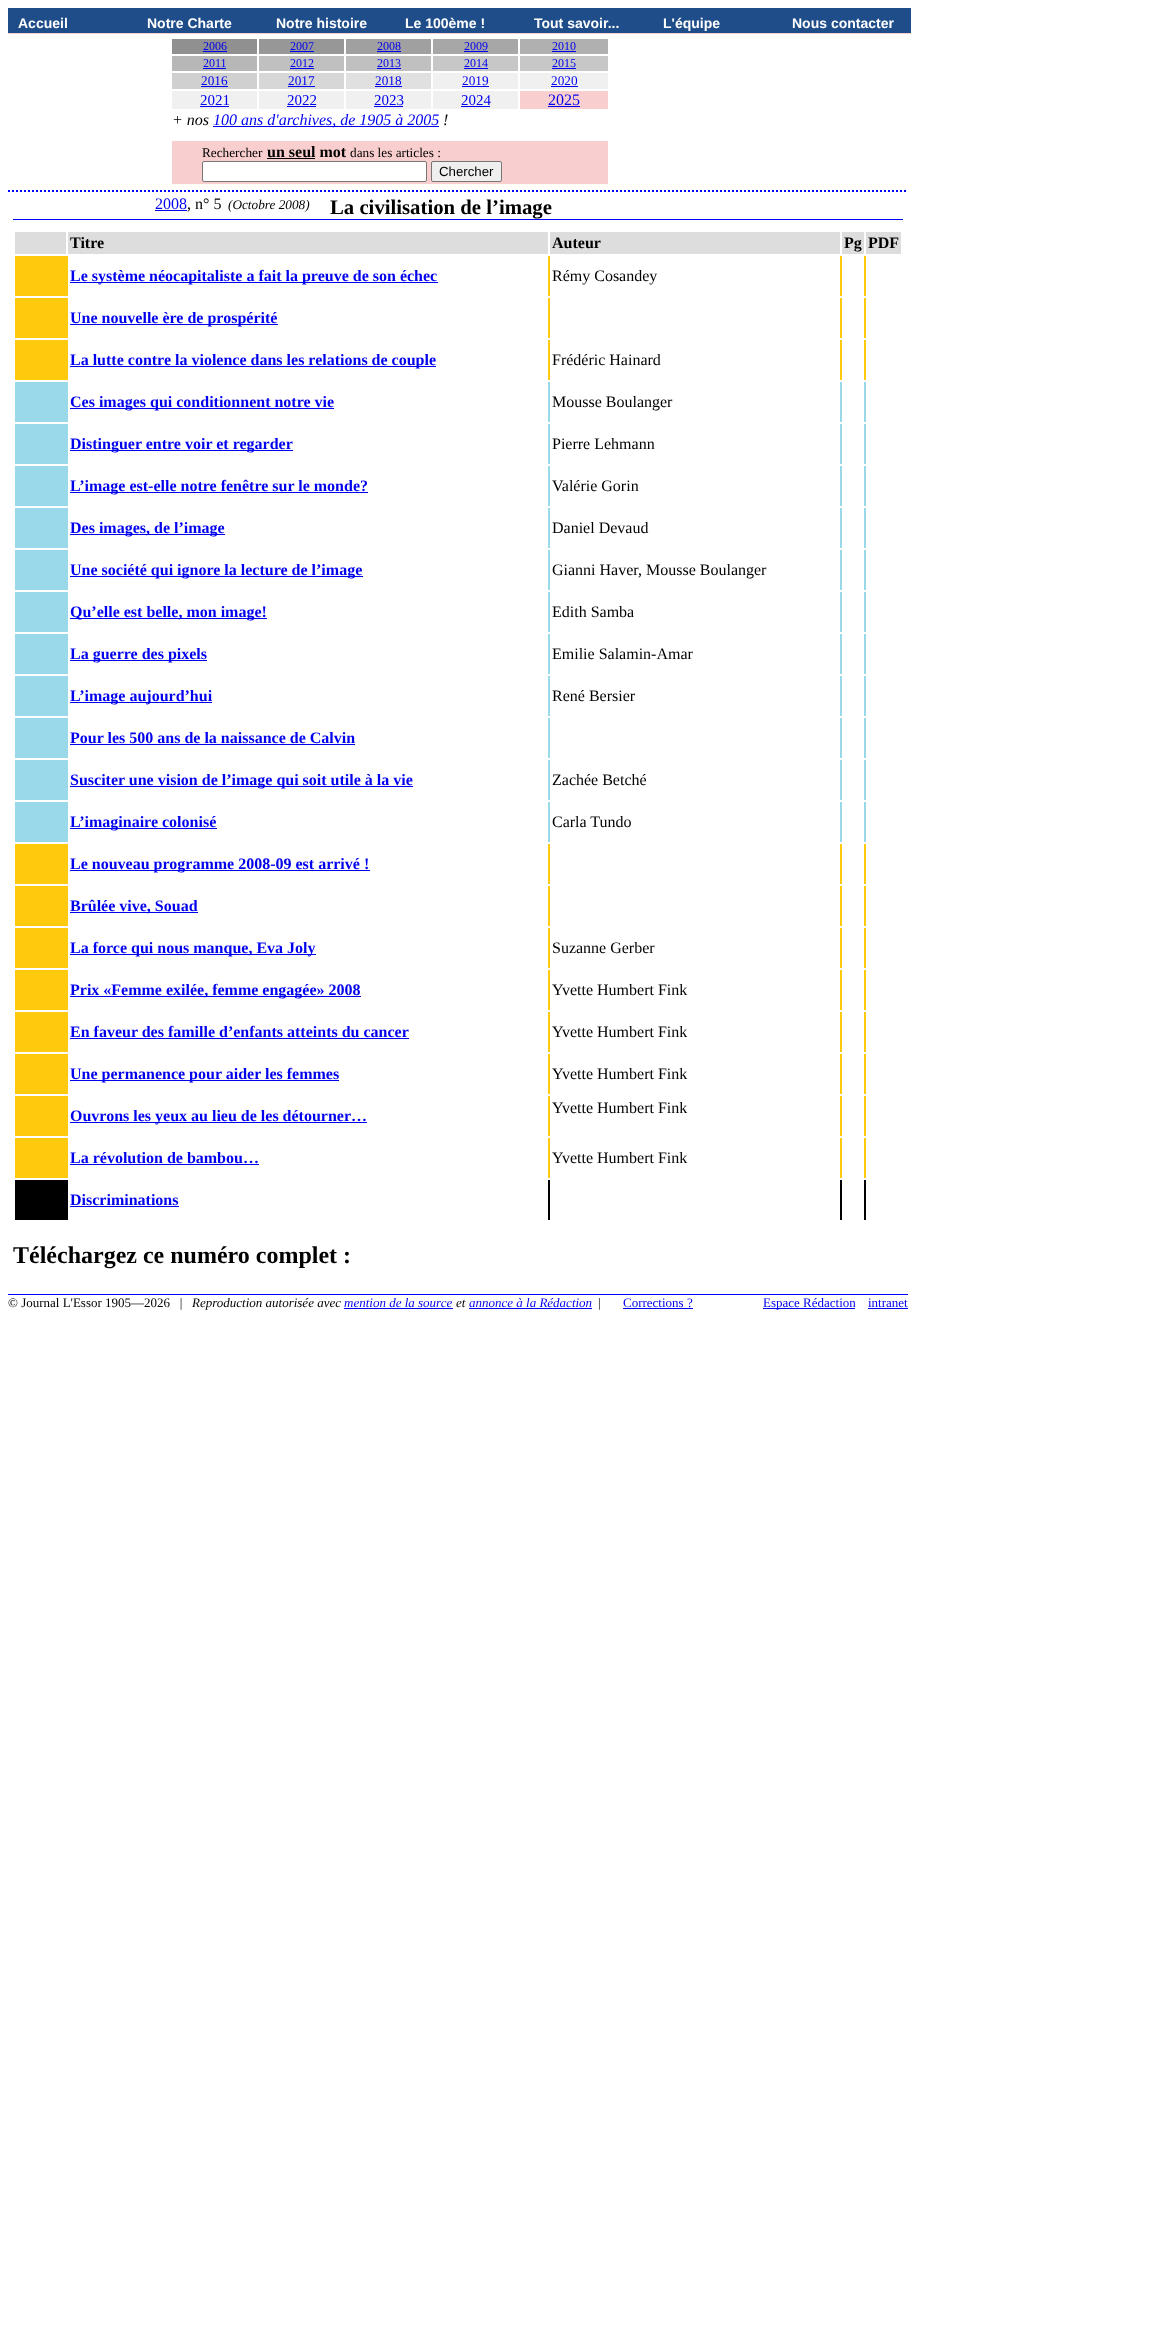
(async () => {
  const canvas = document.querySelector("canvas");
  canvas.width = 1150;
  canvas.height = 2338;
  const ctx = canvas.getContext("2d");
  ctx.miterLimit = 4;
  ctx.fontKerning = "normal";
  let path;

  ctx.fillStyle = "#ffffff";
  ctx.fillRect(0, 0, 1150, 2338);
  for (const [x, y, w, h, color] of [
    [8, 8, 903, 25, "#1e4d8a"],
    [8, 33, 903, 1, "#f9cece"],
    [172, 39, 85, 15, "#909090"],
    [203, 51, 24, 1, "#0000ee"],
    [259, 39, 85, 15, "#979797"],
    [290, 51, 24, 1, "#0000ee"],
    [346, 39, 85, 15, "#a0a0a0"],
    [377, 51, 24, 1, "#0000ee"],
    [433, 39, 85, 15, "#a7a7a7"],
    [464, 51, 24, 1, "#0000ee"],
    [520, 39, 88, 15, "#b0b0b0"],
    [552, 51, 24, 1, "#0000ee"],
    [172, 56, 85, 15, "#b7b7b7"],
    [203, 68, 23, 1, "#0000ee"],
    [259, 56, 85, 15, "#c0c0c0"],
    [290, 68, 24, 1, "#0000ee"],
    [346, 56, 85, 15, "#c0c0c0"],
    [377, 68, 24, 1, "#0000ee"],
    [433, 56, 85, 15, "#c7c7c7"],
    [464, 68, 24, 1, "#0000ee"],
    [520, 56, 88, 15, "#c7c7c7"],
    [552, 68, 24, 1, "#0000ee"],
    [172, 73, 85, 16, "#d0d0d0"],
    [201, 86, 27, 1, "#0000ee"],
    [259, 73, 85, 16, "#d7d7d7"],
    [288, 86, 27, 1, "#0000ee"],
    [346, 73, 85, 16, "#e0e0e0"],
    [375, 86, 27, 1, "#0000ee"],
    [433, 73, 85, 16, "#f0f0f0"],
    [462, 86, 27, 1, "#0000ee"],
    [520, 73, 88, 16, "#f0f0f0"],
    [551, 86, 27, 1, "#0000ee"],
    [172, 91, 85, 18, "#f0f0f0"],
    [200, 106, 29, 1, "#0000ee"],
    [259, 91, 85, 18, "#f0f0f0"],
    [287, 106, 29, 1, "#0000ee"],
    [346, 91, 85, 18, "#f0f0f0"],
    [374, 106, 29, 1, "#0000ee"],
    [433, 91, 85, 18, "#f0f0f0"],
    [461, 106, 29, 1, "#0000ee"],
    [520, 91, 88, 18, "#f9cece"],
    [548, 106, 32, 1, "#0000ee"],
    [213, 126, 226, 1, "#0000ee"],
    [172, 141, 436, 43, "#f9cece"],
    [267, 158, 48, 1, "#000000"],
  ]) {
    ctx.fillStyle = color;
    ctx.fillRect(x, y, w, h);
  }
  ctx.fillStyle = "#ffffff";
  ctx.beginPath();
  ctx.roundRect(202.5, 161.5, 224, 20, 1.5);
  ctx.fill();
  ctx.strokeStyle = "#767676";
  ctx.stroke();
  ctx.fillStyle = "#efefef";
  ctx.beginPath();
  ctx.roundRect(431.5, 161.5, 70, 20, 1.5);
  ctx.fill();
  ctx.stroke();
  path = new Path2D("M8 191H908");
  ctx.strokeStyle = "#0000ff";
  ctx.lineWidth = 2;
  ctx.setLineDash([2, 2]);
  ctx.stroke(path);
  for (const [x, y, w, h, color] of [
    [155, 210, 32, 1, "#0000ee"],
    [13, 219, 890, 1, "#0000ff"],
    [15, 232, 51, 22, "#dddddd"],
    [68, 232, 480, 22, "#dddddd"],
    [550, 232, 290, 22, "#dddddd"],
    [842, 232, 22, 22, "#dddddd"],
    [866, 232, 35, 22, "#dddddd"],
    [15, 256, 851, 40, "#ffc90e"],
    [68, 256, 480, 40, "#ffffff"],
    [70, 282, 368, 1, "#0000ee"],
    [550, 256, 290, 40, "#ffffff"],
    [842, 256, 22, 40, "#ffffff"],
    [15, 298, 851, 40, "#ffc90e"],
    [68, 298, 480, 40, "#ffffff"],
    [70, 324, 208, 1, "#0000ee"],
    [550, 298, 290, 40, "#ffffff"],
    [842, 298, 22, 40, "#ffffff"],
    [15, 340, 851, 40, "#ffc90e"],
    [68, 340, 480, 40, "#ffffff"],
    [70, 366, 366, 1, "#0000ee"],
    [550, 340, 290, 40, "#ffffff"],
    [842, 340, 22, 40, "#ffffff"],
    [15, 382, 851, 40, "#99d9ea"],
    [68, 382, 480, 40, "#ffffff"],
    [70, 408, 264, 1, "#0000ee"],
    [550, 382, 290, 40, "#ffffff"],
    [842, 382, 22, 40, "#ffffff"],
    [15, 424, 851, 40, "#99d9ea"],
    [68, 424, 480, 40, "#ffffff"],
    [70, 450, 223, 1, "#0000ee"],
    [550, 424, 290, 40, "#ffffff"],
    [842, 424, 22, 40, "#ffffff"],
    [15, 466, 851, 40, "#99d9ea"],
    [68, 466, 480, 40, "#ffffff"],
    [70, 492, 298, 1, "#0000ee"],
    [550, 466, 290, 40, "#ffffff"],
    [842, 466, 22, 40, "#ffffff"],
    [15, 508, 851, 40, "#99d9ea"],
    [68, 508, 480, 40, "#ffffff"],
    [70, 534, 155, 1, "#0000ee"],
    [550, 508, 290, 40, "#ffffff"],
    [842, 508, 22, 40, "#ffffff"],
    [15, 550, 851, 40, "#99d9ea"],
    [68, 550, 480, 40, "#ffffff"],
    [70, 576, 293, 1, "#0000ee"],
    [550, 550, 290, 40, "#ffffff"],
    [842, 550, 22, 40, "#ffffff"],
    [15, 592, 851, 40, "#99d9ea"],
    [68, 592, 480, 40, "#ffffff"],
    [70, 618, 197, 1, "#0000ee"],
    [550, 592, 290, 40, "#ffffff"],
    [842, 592, 22, 40, "#ffffff"],
    [15, 634, 851, 40, "#99d9ea"],
    [68, 634, 480, 40, "#ffffff"],
    [70, 660, 137, 1, "#0000ee"],
    [550, 634, 290, 40, "#ffffff"],
    [842, 634, 22, 40, "#ffffff"],
    [15, 676, 851, 40, "#99d9ea"],
    [68, 676, 480, 40, "#ffffff"],
    [70, 702, 142, 1, "#0000ee"],
    [550, 676, 290, 40, "#ffffff"],
    [842, 676, 22, 40, "#ffffff"],
    [15, 718, 851, 40, "#99d9ea"],
    [68, 718, 480, 40, "#ffffff"],
    [70, 744, 285, 1, "#0000ee"],
    [550, 718, 290, 40, "#ffffff"],
    [842, 718, 22, 40, "#ffffff"],
    [15, 760, 851, 40, "#99d9ea"],
    [68, 760, 480, 40, "#ffffff"],
    [70, 786, 343, 1, "#0000ee"],
    [550, 760, 290, 40, "#ffffff"],
    [842, 760, 22, 40, "#ffffff"],
    [15, 802, 851, 40, "#99d9ea"],
    [68, 802, 480, 40, "#ffffff"],
    [70, 828, 147, 1, "#0000ee"],
    [550, 802, 290, 40, "#ffffff"],
    [842, 802, 22, 40, "#ffffff"],
    [15, 844, 851, 40, "#ffc90e"],
    [68, 844, 480, 40, "#ffffff"],
    [70, 870, 300, 1, "#0000ee"],
    [550, 844, 290, 40, "#ffffff"],
    [842, 844, 22, 40, "#ffffff"],
    [15, 886, 851, 40, "#ffc90e"],
    [68, 886, 480, 40, "#ffffff"],
    [70, 912, 128, 1, "#0000ee"],
    [550, 886, 290, 40, "#ffffff"],
    [842, 886, 22, 40, "#ffffff"],
    [15, 928, 851, 40, "#ffc90e"],
    [68, 928, 480, 40, "#ffffff"],
    [70, 954, 246, 1, "#0000ee"],
    [550, 928, 290, 40, "#ffffff"],
    [842, 928, 22, 40, "#ffffff"],
    [15, 970, 851, 40, "#ffc90e"],
    [68, 970, 480, 40, "#ffffff"],
    [70, 996, 291, 1, "#0000ee"],
    [550, 970, 290, 40, "#ffffff"],
    [842, 970, 22, 40, "#ffffff"],
    [15, 1012, 851, 40, "#ffc90e"],
    [68, 1012, 480, 40, "#ffffff"],
    [70, 1038, 339, 1, "#0000ee"],
    [550, 1012, 290, 40, "#ffffff"],
    [842, 1012, 22, 40, "#ffffff"],
    [15, 1054, 851, 40, "#ffc90e"],
    [68, 1054, 480, 40, "#ffffff"],
    [70, 1080, 269, 1, "#0000ee"],
    [550, 1054, 290, 40, "#ffffff"],
    [842, 1054, 22, 40, "#ffffff"],
    [15, 1096, 851, 40, "#ffc90e"],
    [550, 1096, 290, 40, "#ffffff"],
    [842, 1096, 22, 40, "#ffffff"],
    [68, 1096, 480, 40, "#ffffff"],
    [70, 1122, 297, 1, "#0000ee"],
    [15, 1138, 851, 40, "#ffc90e"],
    [68, 1138, 480, 40, "#ffffff"],
    [70, 1164, 189, 1, "#0000ee"],
    [550, 1138, 290, 40, "#ffffff"],
    [842, 1138, 22, 40, "#ffffff"],
    [15, 1180, 851, 40, "#000000"],
    [68, 1180, 480, 40, "#ffffff"],
    [70, 1206, 109, 1, "#0000ee"],
    [550, 1180, 290, 40, "#ffffff"],
    [842, 1180, 22, 40, "#ffffff"],
    [8, 1294, 900, 1, "#0000ff"],
    [344, 1308, 109, 1, "#0000ee"],
    [469, 1308, 123, 1, "#0000ee"],
    [623, 1308, 70, 1, "#0000ee"],
    [763, 1308, 92, 1, "#0000ee"],
    [868, 1308, 40, 1, "#0000ee"],
  ]) {
    ctx.fillStyle = color;
    ctx.fillRect(x, y, w, h);
  }
  ctx.font = "bold 14px Liberation Sans";
  ctx.fillStyle = "#ffffff";
  for (const [text, x, y] of [
    ["Accueil", 18, 28],
    ["Notre Charte", 147, 28],
    ["Notre histoire", 276, 28],
    ["Le 100ème !", 405, 28],
    ["Tout savoir...", 534, 28],
    ["L'équipe", 663, 28],
    ["Nous contacter", 792, 28],
  ]) {
    ctx.fillText(text, x, y);
  }
  ctx.font = "12px Liberation Serif";
  ctx.fillStyle = "#0000ee";
  for (const [text, x, y] of [
    ["2006", 203, 50],
    ["2007", 290, 50],
    ["2008", 377, 50],
    ["2009", 464, 50],
    ["2010", 552, 50],
    ["2011", 203, 67],
    ["2012", 290, 67],
    ["2013", 377, 67],
    ["2014", 464, 67],
    ["2015", 552, 67],
  ]) {
    ctx.fillText(text, x, y);
  }
  ctx.font = "13.25px Liberation Serif";
  for (const [text, x, y] of [
    ["2016", 201, 85],
    ["2017", 288, 85],
    ["2018", 375, 85],
    ["2019", 462, 85],
    ["2020", 551, 85],
  ]) {
    ctx.fillText(text, x, y);
  }
  ctx.font = "15px Liberation Serif";
  for (const [text, x, y] of [
    ["2021", 200, 105],
    ["2022", 287, 105],
    ["2023", 374, 105],
    ["2024", 461, 105],
  ]) {
    ctx.fillText(text, x, y);
  }
  ctx.font = "16px Liberation Serif";
  ctx.fillText("2025", 548, 105);
  ctx.font = "italic 16px Liberation Serif";
  ctx.fillStyle = "#000000";
  ctx.fillText("+ nos", 172, 125);
  ctx.fillStyle = "#0000ee";
  ctx.fillText("100 ans d'archives, de 1905 à 2005", 213, 125);
  ctx.fillStyle = "#000000";
  ctx.fillText("!", 443, 125);
  ctx.font = "13.25px Liberation Serif";
  ctx.fillText("Rechercher", 202, 157);
  ctx.font = "bold 16px Liberation Serif";
  ctx.fillText("un seul mot", 267, 157);
  ctx.font = "13.25px Liberation Serif";
  ctx.fillText("dans les articles :", 350, 157);
  ctx.font = "13.25px Liberation Sans";
  ctx.fillText("Chercher", 439, 176);
  ctx.font = "16px Liberation Serif";
  ctx.fillStyle = "#0000ee";
  ctx.fillText("2008", 155, 209);
  ctx.fillStyle = "#000000";
  ctx.fillText(", n° 5", 187, 209);
  ctx.font = "italic 13.25px Liberation Serif";
  ctx.fillText("(Octobre 2008)", 228, 209);
  ctx.font = "bold 20.75px Liberation Serif";
  ctx.fillText("La civilisation de l’image", 330, 214);
  ctx.font = "bold 16px Liberation Serif";
  for (const [text, x, y] of [
    ["Titre", 70, 248],
    ["Auteur", 552, 248],
    ["Pg", 844, 248],
    ["PDF", 868, 248],
  ]) {
    ctx.fillText(text, x, y);
  }
  ctx.fillStyle = "#0000ee";
  ctx.fillText("Le système néocapitaliste a fait la preuve de son échec", 70, 281);
  ctx.font = "16px Liberation Serif";
  ctx.fillStyle = "#000000";
  ctx.fillText("Rémy Cosandey", 552, 281);
  ctx.font = "bold 16px Liberation Serif";
  ctx.fillStyle = "#0000ee";
  ctx.fillText("Une nouvelle ère de prospérité", 70, 323);
  ctx.fillText("La lutte contre la violence dans les relations de couple", 70, 365);
  ctx.font = "16px Liberation Serif";
  ctx.fillStyle = "#000000";
  ctx.fillText("Frédéric Hainard", 552, 365);
  ctx.font = "bold 16px Liberation Serif";
  ctx.fillStyle = "#0000ee";
  ctx.fillText("Ces images qui conditionnent notre vie", 70, 407);
  ctx.font = "16px Liberation Serif";
  ctx.fillStyle = "#000000";
  ctx.fillText("Mousse Boulanger", 552, 407);
  ctx.font = "bold 16px Liberation Serif";
  ctx.fillStyle = "#0000ee";
  ctx.fillText("Distinguer entre voir et regarder", 70, 449);
  ctx.font = "16px Liberation Serif";
  ctx.fillStyle = "#000000";
  ctx.fillText("Pierre Lehmann", 552, 449);
  ctx.font = "bold 16px Liberation Serif";
  ctx.fillStyle = "#0000ee";
  ctx.fillText("L’image est-elle notre fenêtre sur le monde?", 70, 491);
  ctx.font = "16px Liberation Serif";
  ctx.fillStyle = "#000000";
  ctx.fillText("Valérie Gorin", 552, 491);
  ctx.font = "bold 16px Liberation Serif";
  ctx.fillStyle = "#0000ee";
  ctx.fillText("Des images, de l’image", 70, 533);
  ctx.font = "16px Liberation Serif";
  ctx.fillStyle = "#000000";
  ctx.fillText("Daniel Devaud", 552, 533);
  ctx.font = "bold 16px Liberation Serif";
  ctx.fillStyle = "#0000ee";
  ctx.fillText("Une société qui ignore la lecture de l’image", 70, 575);
  ctx.font = "16px Liberation Serif";
  ctx.fillStyle = "#000000";
  ctx.fillText("Gianni Haver, Mousse Boulanger", 552, 575);
  ctx.font = "bold 16px Liberation Serif";
  ctx.fillStyle = "#0000ee";
  ctx.fillText("Qu’elle est belle, mon image!", 70, 617);
  ctx.font = "16px Liberation Serif";
  ctx.fillStyle = "#000000";
  ctx.fillText("Edith Samba", 552, 617);
  ctx.font = "bold 16px Liberation Serif";
  ctx.fillStyle = "#0000ee";
  ctx.fillText("La guerre des pixels", 70, 659);
  ctx.font = "16px Liberation Serif";
  ctx.fillStyle = "#000000";
  ctx.fillText("Emilie Salamin-Amar", 552, 659);
  ctx.font = "bold 16px Liberation Serif";
  ctx.fillStyle = "#0000ee";
  ctx.fillText("L’image aujourd’hui", 70, 701);
  ctx.font = "16px Liberation Serif";
  ctx.fillStyle = "#000000";
  ctx.fillText("René Bersier", 552, 701);
  ctx.font = "bold 16px Liberation Serif";
  ctx.fillStyle = "#0000ee";
  ctx.fillText("Pour les 500 ans de la naissance de Calvin", 70, 743);
  ctx.fillText("Susciter une vision de l’image qui soit utile à la vie", 70, 785);
  ctx.font = "16px Liberation Serif";
  ctx.fillStyle = "#000000";
  ctx.fillText("Zachée Betché", 552, 785);
  ctx.font = "bold 16px Liberation Serif";
  ctx.fillStyle = "#0000ee";
  ctx.fillText("L’imaginaire colonisé", 70, 827);
  ctx.font = "16px Liberation Serif";
  ctx.fillStyle = "#000000";
  ctx.fillText("Carla Tundo", 552, 827);
  ctx.font = "bold 16px Liberation Serif";
  ctx.fillStyle = "#0000ee";
  for (const [text, x, y] of [
    ["Le nouveau programme 2008-09 est arrivé !", 70, 869],
    ["Brûlée vive, Souad", 70, 911],
    ["La force qui nous manque, Eva Joly", 70, 953],
  ]) {
    ctx.fillText(text, x, y);
  }
  ctx.font = "16px Liberation Serif";
  ctx.fillStyle = "#000000";
  ctx.fillText("Suzanne Gerber", 552, 953);
  ctx.font = "bold 16px Liberation Serif";
  ctx.fillStyle = "#0000ee";
  ctx.fillText("Prix «Femme exilée, femme engagée» 2008", 70, 995);
  ctx.font = "16px Liberation Serif";
  ctx.fillStyle = "#000000";
  ctx.fillText("Yvette Humbert Fink", 552, 995);
  ctx.font = "bold 16px Liberation Serif";
  ctx.fillStyle = "#0000ee";
  ctx.fillText("En faveur des famille d’enfants atteints du cancer", 70, 1037);
  ctx.font = "16px Liberation Serif";
  ctx.fillStyle = "#000000";
  ctx.fillText("Yvette Humbert Fink", 552, 1037);
  ctx.font = "bold 16px Liberation Serif";
  ctx.fillStyle = "#0000ee";
  ctx.fillText("Une permanence pour aider les femmes", 70, 1079);
  ctx.font = "16px Liberation Serif";
  ctx.fillStyle = "#000000";
  ctx.fillText("Yvette Humbert Fink", 552, 1079);
  ctx.fillText("Yvette Humbert Fink", 552, 1113);
  ctx.font = "bold 16px Liberation Serif";
  ctx.fillStyle = "#0000ee";
  ctx.fillText("Ouvrons les yeux au lieu de les détourner…", 70, 1121);
  ctx.fillText("La révolution de bambou…", 70, 1163);
  ctx.font = "16px Liberation Serif";
  ctx.fillStyle = "#000000";
  ctx.fillText("Yvette Humbert Fink", 552, 1163);
  ctx.font = "bold 16px Liberation Serif";
  ctx.fillStyle = "#0000ee";
  ctx.fillText("Discriminations", 70, 1205);
  ctx.font = "bold 24px Liberation Serif";
  ctx.fillStyle = "#000000";
  ctx.fillText("Téléchargez ce numéro complet :", 13, 1263);
  ctx.font = "13px Liberation Serif";
  ctx.fillText("© Journal L'Essor 1905—2026   |", 8, 1307);
  ctx.font = "italic 13px Liberation Serif";
  ctx.fillText("Reproduction autorisée avec", 192, 1307);
  ctx.fillStyle = "#0000ee";
  ctx.fillText("mention de la source", 344, 1307);
  ctx.fillStyle = "#000000";
  ctx.fillText("et", 456, 1307);
  ctx.fillStyle = "#0000ee";
  ctx.fillText("annonce à la Rédaction", 469, 1307);
  ctx.font = "13px Liberation Serif";
  ctx.fillStyle = "#000000";
  ctx.fillText("|", 598, 1307);
  ctx.fillStyle = "#0000ee";
  for (const [text, x, y] of [
    ["Corrections ?", 623, 1307],
    ["Espace Rédaction", 763, 1307],
    ["intranet", 868, 1307],
  ]) {
    ctx.fillText(text, x, y);
  }
})();
